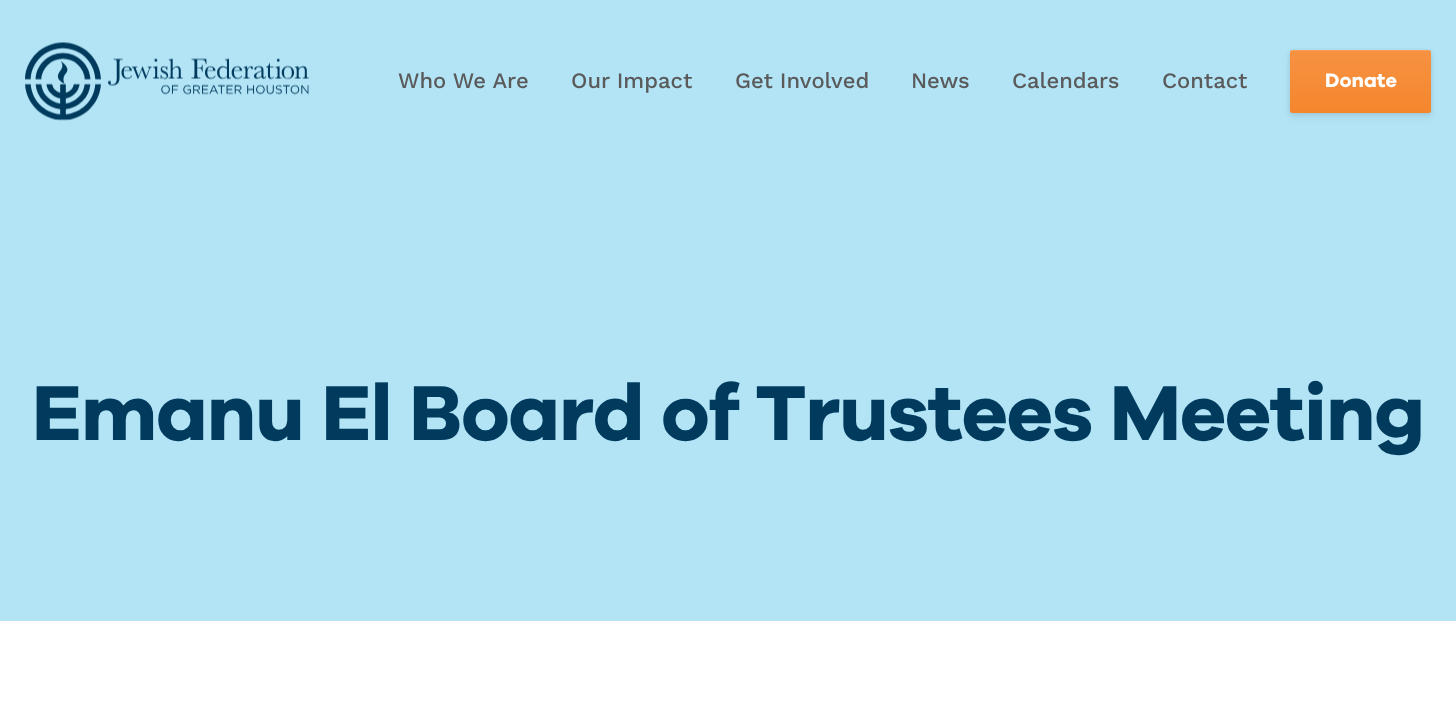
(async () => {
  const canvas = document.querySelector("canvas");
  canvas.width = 1456;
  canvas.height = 725;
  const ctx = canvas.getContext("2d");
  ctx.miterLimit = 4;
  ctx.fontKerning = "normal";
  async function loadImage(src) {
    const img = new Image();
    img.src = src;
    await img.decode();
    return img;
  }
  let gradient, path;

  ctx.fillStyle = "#ffffff";
  ctx.fillRect(0, 0, 1456, 725);
  ctx.fillStyle = "#b2e4f6";
  ctx.fillRect(0, 0, 1456, 621);
  ctx.drawImage(await loadImage("img/1.png"), 25, 42, 284, 79);
  ctx.fillStyle = "rgba(0, 0, 0, 0.05)";
  ctx.filter = "blur(4px)";
  ctx.beginPath();
  ctx.roundRect(1290, 55, 141, 63, 2.5);
  ctx.fill();
  ctx.filter = "none";
  ctx.fillStyle = "rgba(0, 0, 0, 0.1)";
  ctx.filter = "blur(2px)";
  ctx.beginPath();
  ctx.roundRect(1290, 51, 141, 63, 2.5);
  ctx.fill();
  ctx.filter = "none";
  ctx.fillStyle = "#f5862d";
  ctx.beginPath();
  ctx.roundRect(1290, 50, 141, 63, 2.5);
  ctx.fill();
  gradient = ctx.createLinearGradient(1361, 50, 1361, 113);
  gradient.addColorStop(0, "rgba(255, 255, 255, 0.1)");
  gradient.addColorStop(1, "rgba(255, 255, 255, 0)");
  ctx.fillStyle = gradient;
  ctx.beginPath();
  ctx.roundRect(1290, 50, 141, 63, 2.5);
  ctx.fill();
  ctx.fillStyle = "rgba(255, 255, 255, 0.1)";
  path = new Path2D("M1292 51H1429C1430 51 1431 52 1431 54V52C1431 51 1430 50 1428 50H1292C1291 50 1290 51 1290 52V54C1290 52 1291 51 1292 51Z");
  ctx.fill(path);
  ctx.font = "500 22px Work Sans";
  ctx.fillStyle = "#5a5a5a";
  for (const [text, x, y] of [
    ["Who We Are", 398, 88],
    ["Our Impact", 571, 88],
    ["Get Involved", 735, 88],
    ["News", 911, 88],
    ["Calendars", 1012, 88],
    ["Contact", 1162, 88],
  ]) {
    ctx.fillText(text, x, y);
  }
  ctx.font = "20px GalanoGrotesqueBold";
  ctx.fillStyle = "#ffffff";
  ctx.fillText("Donate", 1325, 87);
  ctx.letterSpacing = "-1px";
  ctx.font = "80.1px GalanoGrotesqueBold";
  ctx.fillStyle = "#003a5d";
  ctx.fillText("Emanu El Board of Trustees Meeting", 32, 440);
})();
